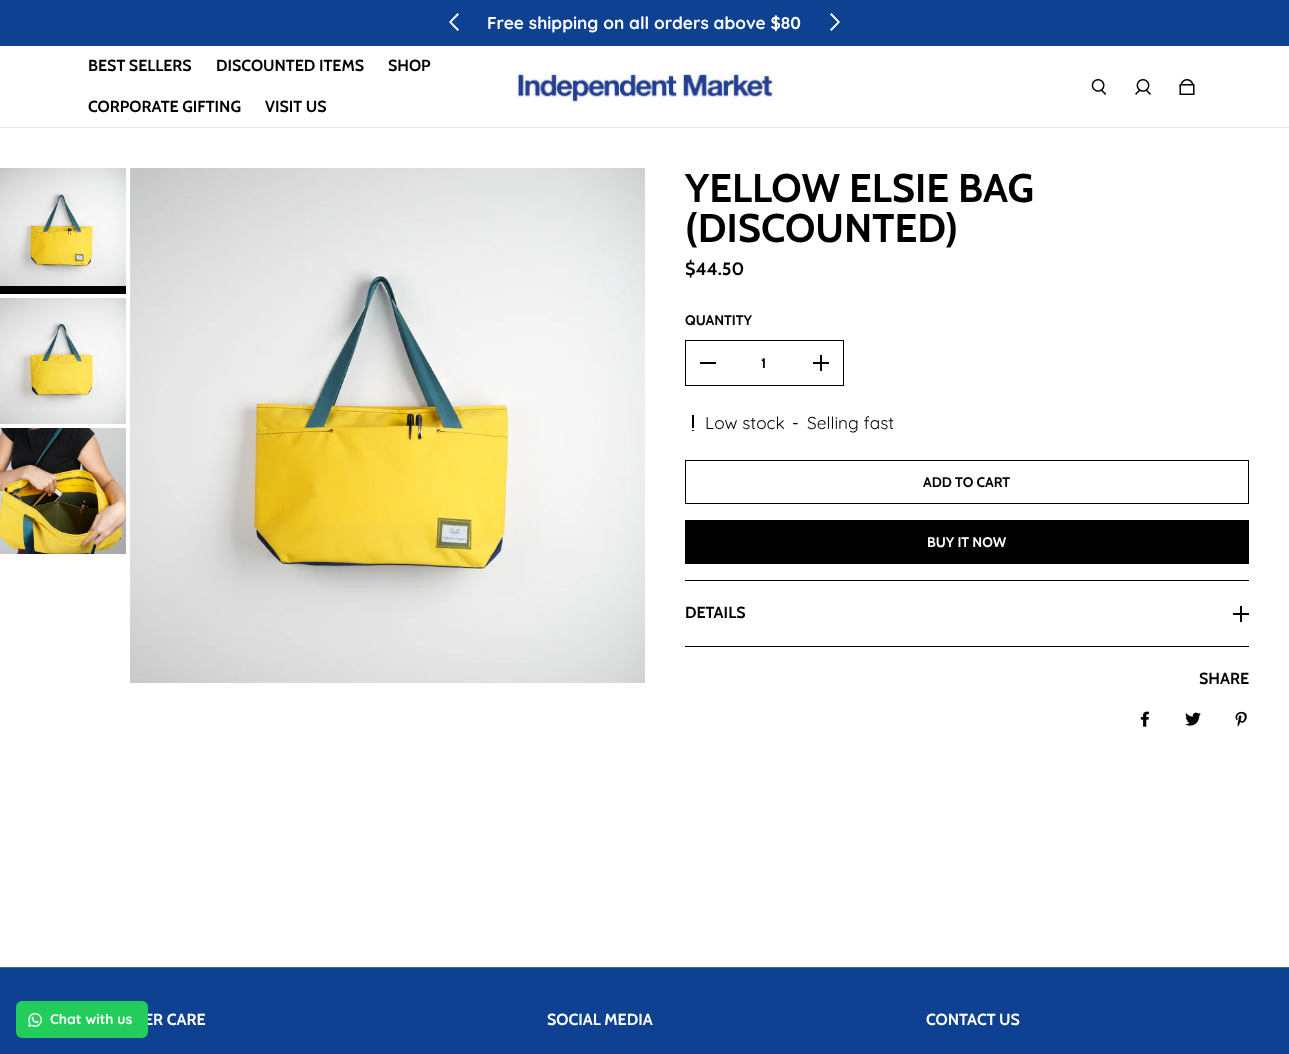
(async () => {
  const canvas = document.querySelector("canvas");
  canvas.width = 1289;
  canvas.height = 1054;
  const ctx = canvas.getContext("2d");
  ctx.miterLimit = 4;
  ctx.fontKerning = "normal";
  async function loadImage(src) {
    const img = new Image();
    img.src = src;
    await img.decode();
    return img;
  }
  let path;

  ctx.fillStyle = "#ffffff";
  ctx.fillRect(0, 0, 1289, 1054);
  ctx.fillStyle = "#0e4191";
  ctx.fillRect(0, 0, 1289, 46);
  ctx.fillStyle = "#ffffff";
  path = new Path2D("M451.5 22L459 14.5L457.5 13L449 22L457.5 31L459 29.5Z");
  ctx.fill(path, "evenodd");
  path = new Path2D("M837.5 22L830 29.5L831.5 31L840 22L831.5 13L830 14.5Z");
  ctx.fill(path, "evenodd");
  ctx.fillStyle = "#e6e6e6";
  ctx.fillRect(0, 127, 1289, 1);
  ctx.drawImage(await loadImage("img/1.png"), 516, 72, 258, 31);
  ctx.drawImage(await loadImage("img/2.png"), 1091, 79, 16, 16);
  ctx.drawImage(await loadImage("img/3.png"), 1135, 79, 16, 16);
  ctx.drawImage(await loadImage("img/4.png"), 1179, 79, 16, 16);
  ctx.drawImage(await loadImage("img/5.png"), 0, 168, 126, 118);
  ctx.fillStyle = "#000000";
  ctx.fillRect(0, 286, 126, 8);
  ctx.drawImage(await loadImage("img/6.png"), 0, 298, 126, 126);
  ctx.drawImage(await loadImage("img/7.png"), 0, 428, 126, 126);
  ctx.drawImage(await loadImage("img/8.png"), 130, 168, 515, 515);
  ctx.strokeStyle = "#000000";
  ctx.strokeRect(685.5, 340.5, 158, 45);
  for (const [x, y, w, h, color] of [
    [700, 362, 16, 2, "#000000"],
    [813, 362, 16, 2, "#000000"],
    [820, 355, 2, 16, "#000000"],
    [692, 415, 2, 13, "#000000"],
    [692, 430, 2, 1, "#000000"],
  ]) {
    ctx.fillStyle = color;
    ctx.fillRect(x, y, w, h);
  }
  ctx.strokeRect(685.5, 460.5, 563, 43);
  ctx.strokeRect(685.5, 520.5, 563, 43);
  for (const [x, y, w, h, color] of [
    [686, 521, 562, 42, "#000000"],
    [685, 580, 564, 1, "#000000"],
    [685, 646, 564, 1, "#000000"],
    [1233, 613, 16, 2, "#000000"],
    [1240, 606, 2, 16, "#000000"],
  ]) {
    ctx.fillStyle = color;
    ctx.fillRect(x, y, w, h);
  }
  ctx.drawImage(await loadImage("img/9.png"), 1140, 711, 9, 16);
  ctx.drawImage(await loadImage("img/10.png"), 1185, 712, 16, 14);
  ctx.drawImage(await loadImage("img/11.png"), 1235, 711, 12, 16);
  ctx.fillStyle = "#0e4191";
  ctx.fillRect(0, 968, 1289, 86);
  ctx.fillStyle = "#3e67a7";
  ctx.fillRect(0, 967, 1289, 1);
  ctx.font = "bold 17.25px Quicksand";
  ctx.fillStyle = "#ffffff";
  ctx.fillText("Free shipping on all orders above $80", 487, 29);
  ctx.font = "bold 16px Cabin";
  ctx.fillStyle = "#000000";
  for (const [text, x, y] of [
    ["BEST SELLERS", 88, 71],
    ["DISCOUNTED ITEMS", 216, 71],
    ["SHOP", 388, 71],
    ["CORPORATE GIFTING", 88, 112],
    ["VISIT US", 265, 112],
  ]) {
    ctx.fillText(text, x, y);
  }
  ctx.font = "bold 40px Cabin";
  ctx.fillText("YELLOW ELSIE BAG", 685, 202);
  ctx.fillText("(DISCOUNTED)", 685, 242);
  ctx.font = "bold 18px Cabin";
  ctx.fillText("$44.50", 685, 275);
  ctx.font = "bold 14px Cabin";
  ctx.fillText("QUANTITY", 685, 325);
  ctx.fillText("1", 761, 368);
  ctx.font = "17.25px Quicksand";
  for (const [text, x, y] of [
    ["Low stock", 705, 429],
    ["-", 792, 429],
    ["Selling fast", 807, 429],
  ]) {
    ctx.fillText(text, x, y);
  }
  ctx.font = "bold 14px Cabin";
  ctx.fillText("ADD TO CART", 923, 487);
  ctx.fillStyle = "#ffffff";
  ctx.fillText("BUY IT NOW", 927, 547);
  ctx.font = "bold 16px Cabin";
  ctx.fillStyle = "#000000";
  ctx.fillText("DETAILS", 685, 618);
  ctx.fillText("SHARE", 1199, 684);
  ctx.fillStyle = "#ffffff";
  ctx.fillText("ER CARE", 144, 1025);
  ctx.fillStyle = "#22cd5b";
  ctx.beginPath();
  ctx.roundRect(16, 1001, 132, 37, 6);
  ctx.fill();
  ctx.drawImage(await loadImage("img/12.png"), 28, 1013, 14, 14);
  ctx.font = "bold 14px Quicksand";
  ctx.fillStyle = "#ffffff";
  ctx.fillText("Chat with us", 50, 1024);
  ctx.font = "bold 16px Cabin";
  ctx.fillText("SOCIAL MEDIA", 547, 1025);
  ctx.fillText("CONTACT US", 926, 1025);
})();
